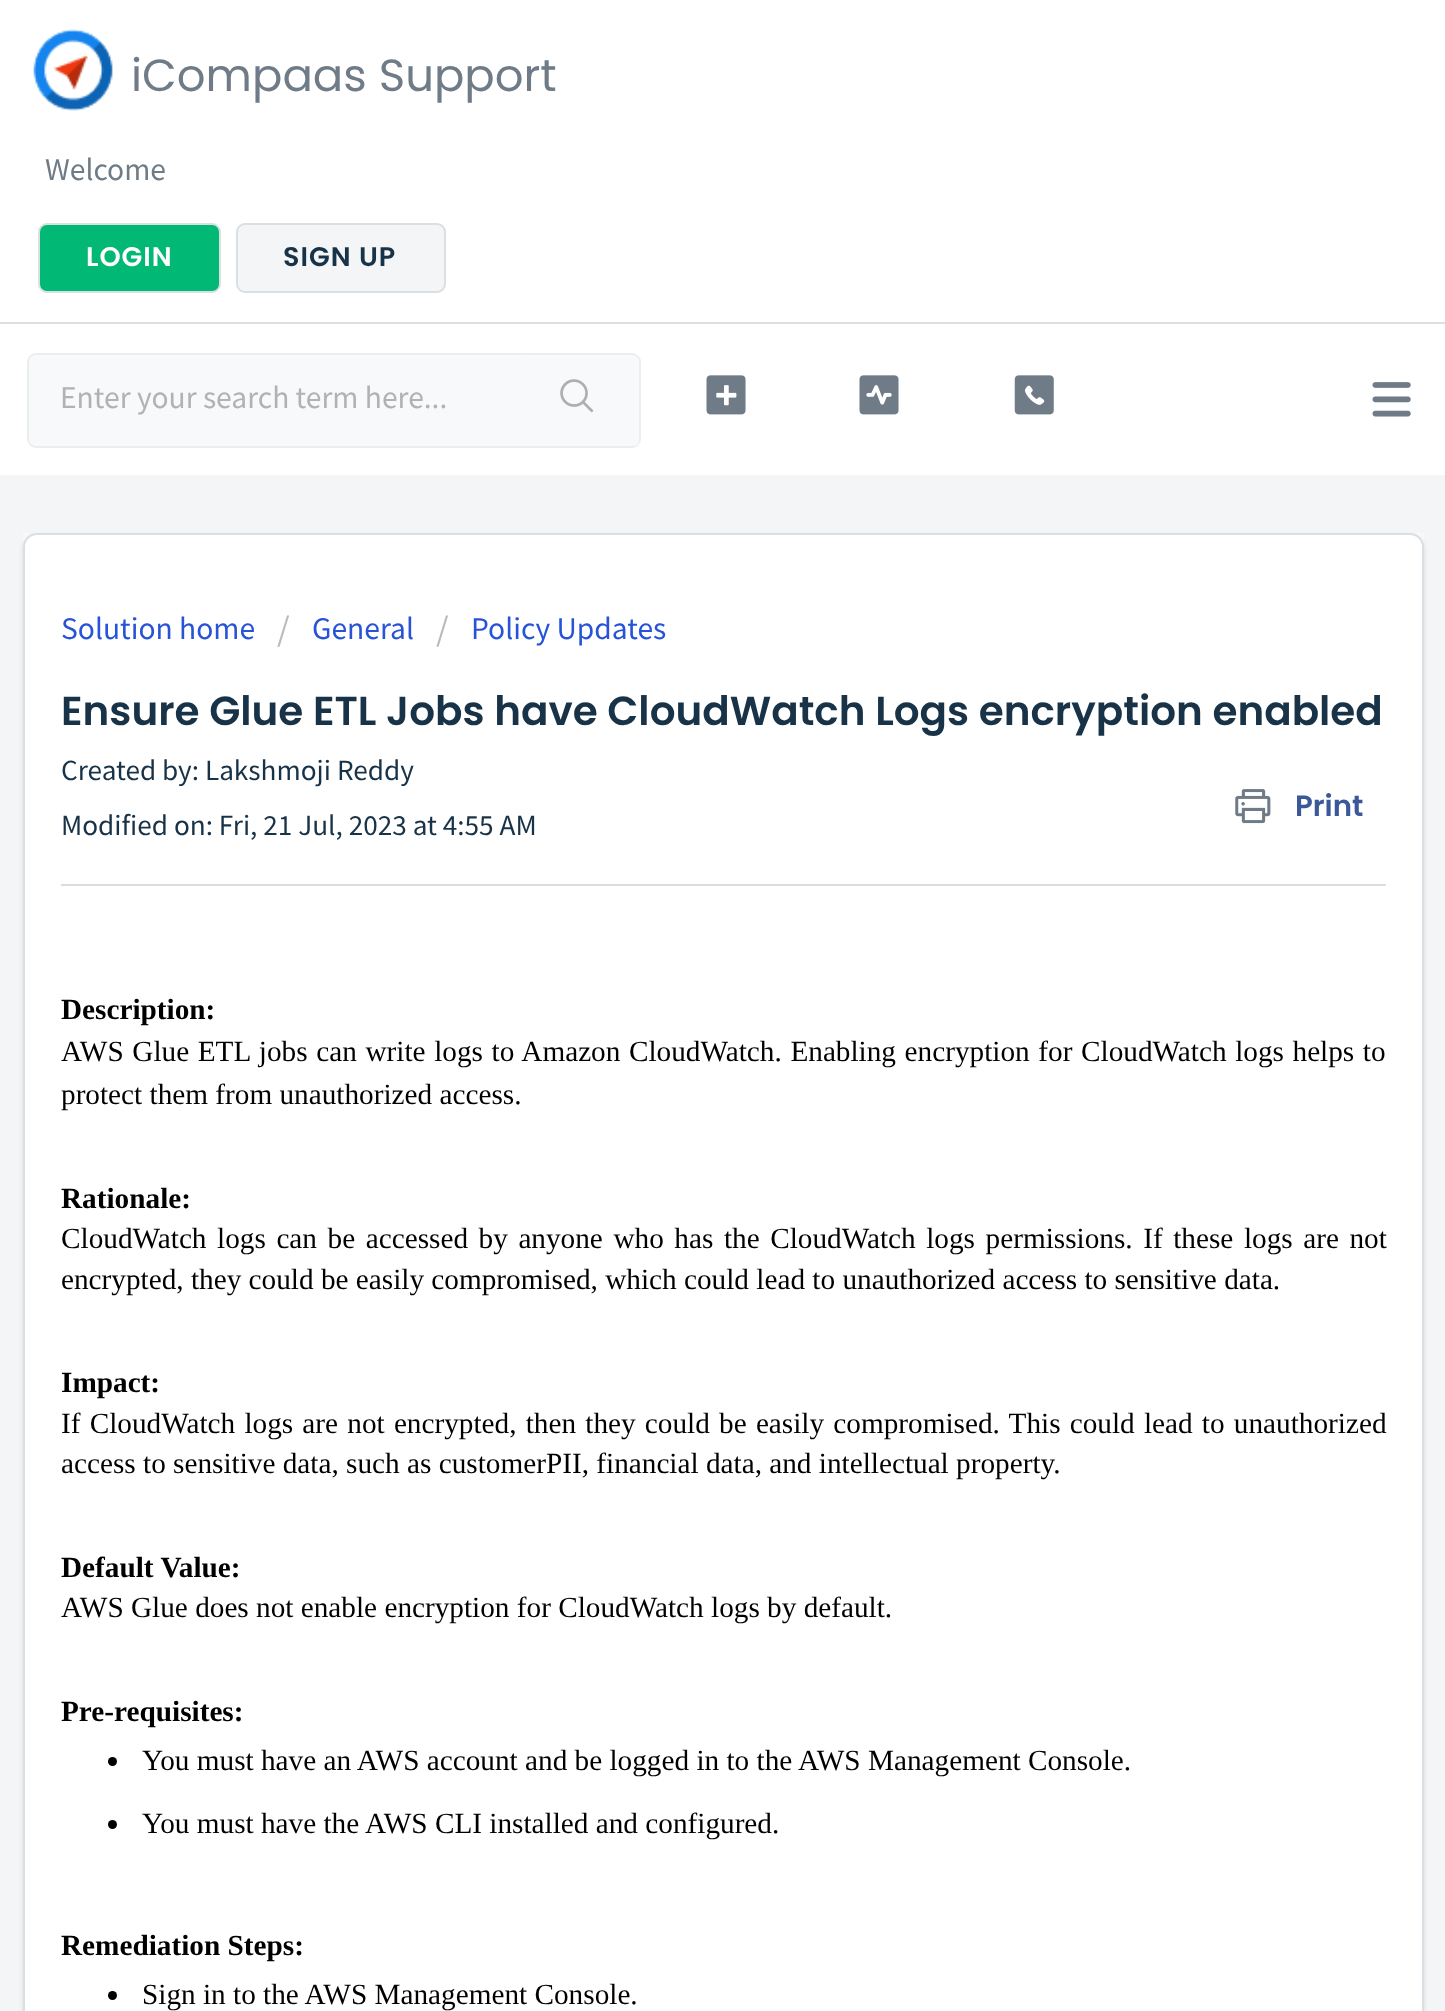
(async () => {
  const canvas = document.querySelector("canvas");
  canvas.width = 1445;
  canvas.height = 2011;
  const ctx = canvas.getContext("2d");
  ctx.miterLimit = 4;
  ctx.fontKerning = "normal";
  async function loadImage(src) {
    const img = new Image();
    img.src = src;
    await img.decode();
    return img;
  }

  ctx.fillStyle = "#f3f5f7";
  ctx.fillRect(0, 0, 1445, 2011);
  ctx.fillStyle = "#ffffff";
  ctx.fillRect(0, 0, 1445, 322);
  ctx.fillStyle = "#dadfe3";
  ctx.fillRect(0, 322, 1445, 2);
  ctx.drawImage(await loadImage("img/1.png"), 33, 29, 80, 82);
  ctx.fillStyle = "#02b875";
  ctx.beginPath();
  ctx.roundRect(39, 224, 181, 68, 8);
  ctx.fill();
  ctx.strokeStyle = "#dadfe3";
  ctx.lineWidth = 2;
  ctx.stroke();
  ctx.fillStyle = "#f3f5f7";
  ctx.beginPath();
  ctx.roundRect(237, 224, 208, 68, 8);
  ctx.fill();
  ctx.stroke();
  ctx.fillStyle = "#ffffff";
  ctx.fillRect(0, 324, 1445, 151);
  ctx.drawImage(await loadImage("img/2.png"), 1372, 382, 39, 35);
  ctx.fillStyle = "#f8f9fa";
  ctx.beginPath();
  ctx.roundRect(28, 354, 612, 93, 8);
  ctx.fill();
  ctx.strokeStyle = "#ebeef0";
  ctx.stroke();
  ctx.beginPath();
  ctx.roundRect(518, 356, 121, 90, 5);
  ctx.fill();
  ctx.drawImage(await loadImage("img/3.png"), 560, 379, 34, 34);
  ctx.drawImage(await loadImage("img/4.png"), 706, 375, 40, 40);
  ctx.drawImage(await loadImage("img/5.png"), 859, 375, 40, 40);
  ctx.drawImage(await loadImage("img/6.png"), 1014, 375, 40, 40);
  ctx.fillRect(23, 533, 1401, 14);
  ctx.fillStyle = "rgba(63, 63, 68, 0.15)";
  ctx.filter = "blur(2px)";
  ctx.beginPath();
  ctx.roundRect(23, 536, 1401, 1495, 14);
  ctx.fill();
  ctx.filter = "none";
  ctx.fillStyle = "#ffffff";
  ctx.beginPath();
  ctx.roundRect(24, 534, 1399, 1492, 13);
  ctx.fill();
  ctx.strokeStyle = "#dadfe3";
  ctx.stroke();
  ctx.drawImage(await loadImage("img/7.png"), 1235, 789, 36, 35);
  ctx.fillStyle = "#dcdcdc";
  ctx.fillRect(61, 884, 1325, 2);
  ctx.fillStyle = "#000000";
  ctx.beginPath();
  ctx.arc(112.5, 1761.5, 4.5, 0, Math.PI * 2);
  ctx.fill();
  ctx.beginPath();
  ctx.arc(112.5, 1824.5, 4.5, 0, Math.PI * 2);
  ctx.fill();
  ctx.beginPath();
  ctx.arc(112.5, 1995.5, 4.5, 0, Math.PI * 2);
  ctx.fill();
  ctx.font = "45px Poppins";
  ctx.fillStyle = "#6f7c87";
  ctx.fillText("iCompaas Support", 131, 91);
  ctx.font = "31.5px Source Sans Pro";
  ctx.fillText("Welcome", 45, 180);
  ctx.letterSpacing = "1px";
  ctx.font = "600 27px Poppins";
  ctx.fillStyle = "#ffffff";
  ctx.fillText("LOGIN", 86, 266);
  ctx.fillStyle = "#183247";
  ctx.fillText("SIGN UP", 283, 266);
  ctx.letterSpacing = "0px";
  ctx.font = "31.5px Source Sans Pro";
  ctx.fillStyle = "#b2b2b2";
  ctx.fillText("Enter your search term here...", 60, 408);
  ctx.fillStyle = "#2753d7";
  ctx.fillText("Solution home", 61, 639);
  ctx.font = "36px Source Sans Pro";
  ctx.fillStyle = "#bbbbbb";
  ctx.fillText("/", 277, 641);
  ctx.font = "31.5px Source Sans Pro";
  ctx.fillStyle = "#2753d7";
  ctx.fillText("General", 312, 639);
  ctx.font = "36px Source Sans Pro";
  ctx.fillStyle = "#bbbbbb";
  ctx.fillText("/", 436, 641);
  ctx.font = "31.5px Source Sans Pro";
  ctx.fillStyle = "#2753d7";
  ctx.fillText("Policy Updates", 471, 639);
  ctx.font = "600 40.5px Poppins";
  ctx.fillStyle = "#183247";
  ctx.fillText("Ensure Glue ETL Jobs have CloudWatch Logs encryption enabled", 61, 725);
  ctx.font = "600 29.25px Poppins";
  ctx.fillStyle = "#3b5998";
  ctx.fillText("Print", 1295, 816);
  ctx.font = "29.25px Source Sans Pro";
  ctx.fillStyle = "#183247";
  ctx.fillText("Created by: Lakshmoji Reddy", 61, 780);
  ctx.fillText("Modified on: Fri, 21 Jul, 2023 at 4:55 AM", 61, 835);
  ctx.font = "bold 29.25px Liberation Serif";
  ctx.fillStyle = "#000000";
  ctx.fillText("Description:", 61, 1019);
  ctx.wordSpacing = "1.3px";
  ctx.font = "29.25px Liberation Serif";
  ctx.fillText("AWS Glue ETL jobs can write logs to Amazon CloudWatch. Enabling encryption for CloudWatch logs helps to", 61, 1061);
  ctx.wordSpacing = "0px";
  ctx.fillText("protect them from unauthorized access.", 61, 1104);
  ctx.font = "bold 29.25px Liberation Serif";
  ctx.fillText("Rationale:", 61, 1208);
  ctx.wordSpacing = "3.25px";
  ctx.font = "29.25px Liberation Serif";
  ctx.fillText("CloudWatch logs can be accessed by anyone who has the CloudWatch logs permissions. If these logs are not", 61, 1248);
  ctx.wordSpacing = "0px";
  ctx.fillText("encrypted, they could be easily compromised, which could lead to unauthorized access to sensitive data.", 61, 1289);
  ctx.font = "bold 29.25px Liberation Serif";
  ctx.fillText("Impact:", 61, 1392);
  ctx.wordSpacing = "1.9px";
  ctx.font = "29.25px Liberation Serif";
  ctx.fillText("If CloudWatch logs are not encrypted, then they could be easily compromised. This could lead to unauthorized", 61, 1433);
  ctx.wordSpacing = "0px";
  ctx.fillText("access to sensitive data, such as customerPII, financial data, and intellectual property.", 61, 1473);
  ctx.font = "bold 29.25px Liberation Serif";
  ctx.fillText("Default Value:", 61, 1577);
  ctx.font = "29.25px Liberation Serif";
  ctx.fillText("AWS Glue does not enable encryption for CloudWatch logs by default.", 61, 1617);
  ctx.font = "bold 29.25px Liberation Serif";
  ctx.fillText("Pre-requisites:", 61, 1721);
  ctx.font = "29.25px Liberation Serif";
  ctx.fillText("You must have an AWS account and be logged in to the AWS Management Console.", 142, 1770);
  ctx.fillText("You must have the AWS CLI installed and configured.", 142, 1833);
  ctx.font = "bold 29.25px Liberation Serif";
  ctx.fillText("Remediation Steps:", 61, 1955);
  ctx.font = "29.25px Liberation Serif";
  ctx.fillText("Sign in to the AWS Management Console.", 142, 2004);
})();
